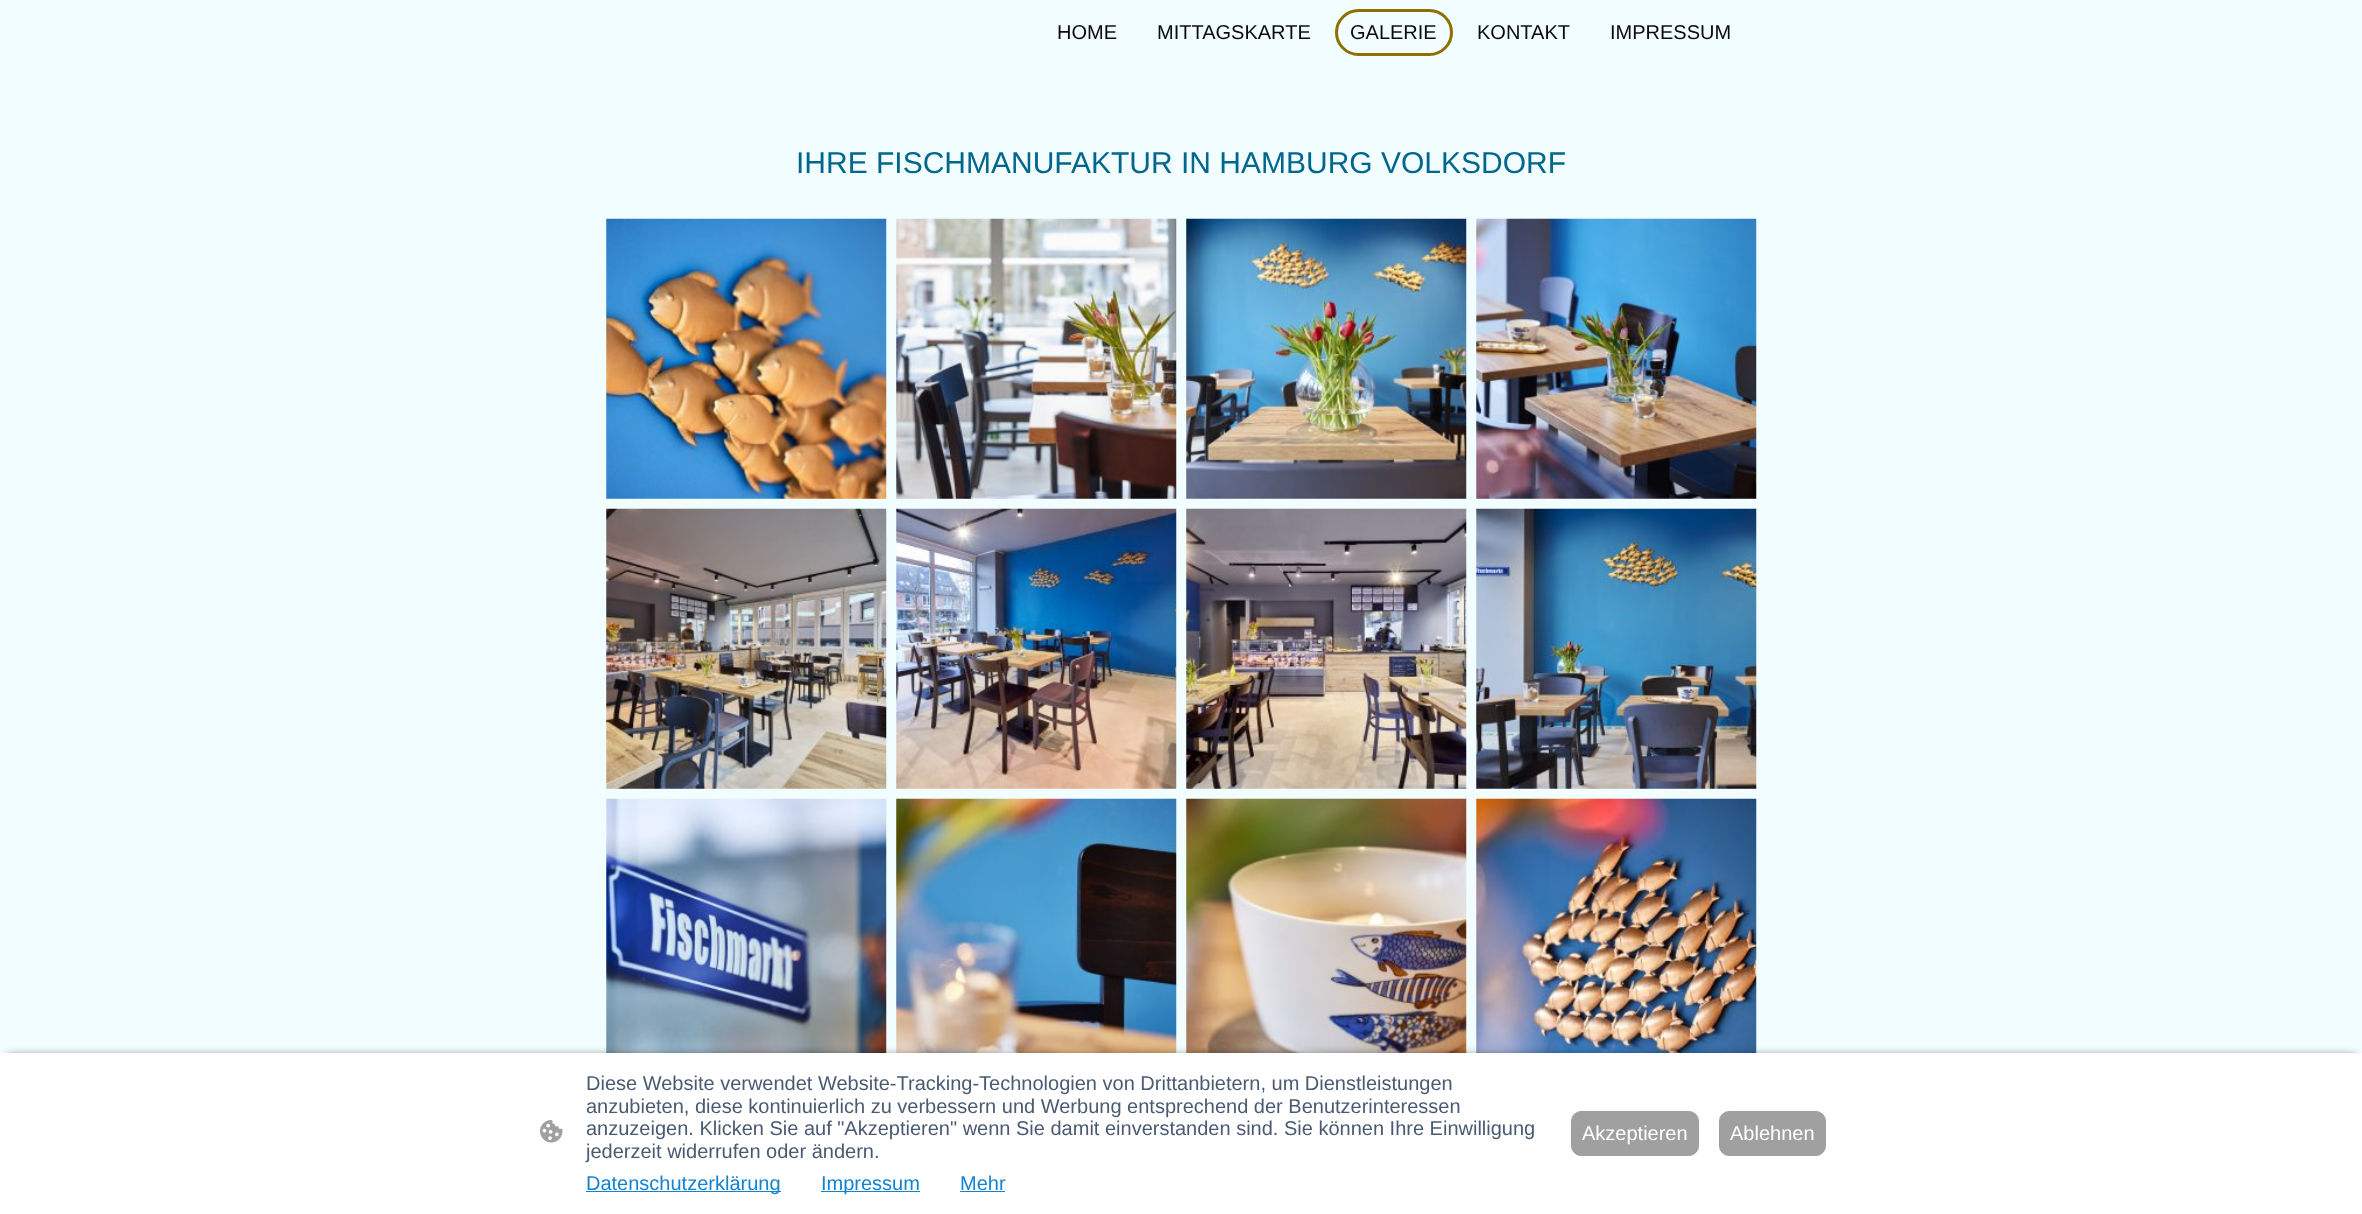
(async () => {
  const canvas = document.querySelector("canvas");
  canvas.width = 2362;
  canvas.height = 1214;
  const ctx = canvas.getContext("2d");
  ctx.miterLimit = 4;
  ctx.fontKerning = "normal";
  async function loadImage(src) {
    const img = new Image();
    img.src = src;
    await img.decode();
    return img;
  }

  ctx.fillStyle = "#f1fdff";
  ctx.fillRect(0, 0, 2362, 1214);
  ctx.beginPath();
  ctx.roundRect(1336.5, 10.5, 115, 44, 22);
  ctx.strokeStyle = "#8d7000";
  ctx.lineWidth = 3;
  ctx.stroke();
  ctx.drawImage(await loadImage("img/1.png"), 606, 218, 281, 281);
  ctx.drawImage(await loadImage("img/2.png"), 896, 218, 281, 281);
  ctx.drawImage(await loadImage("img/3.png"), 1186, 218, 281, 281);
  ctx.drawImage(await loadImage("img/4.png"), 1476, 218, 281, 281);
  ctx.drawImage(await loadImage("img/5.png"), 606, 508, 281, 281);
  ctx.drawImage(await loadImage("img/6.png"), 896, 508, 281, 281);
  ctx.drawImage(await loadImage("img/7.png"), 1186, 508, 281, 281);
  ctx.drawImage(await loadImage("img/8.png"), 1476, 508, 281, 281);
  ctx.drawImage(await loadImage("img/9.png"), 606, 798, 281, 255);
  ctx.drawImage(await loadImage("img/10.png"), 896, 798, 281, 255);
  ctx.drawImage(await loadImage("img/11.png"), 1186, 798, 281, 255);
  ctx.drawImage(await loadImage("img/12.png"), 1476, 798, 281, 255);
  ctx.fillStyle = "rgba(0, 0, 0, 0.63)";
  ctx.filter = "blur(5px)";
  ctx.beginPath();
  ctx.rect(8, 1056, 2347, 148);
  ctx.fill();
  ctx.filter = "none";
  ctx.fillStyle = "#ffffff";
  ctx.fillRect(0, 1053, 2362, 161);
  ctx.drawImage(await loadImage("img/13.png"), 540, 1120, 23, 23);
  for (const [x, y, w, h, color] of [
    [586, 1191, 195, 1, "#1183d1"],
    [821, 1191, 99, 1, "#1183d1"],
    [960, 1191, 45, 1, "#1183d1"],
  ]) {
    ctx.fillStyle = color;
    ctx.fillRect(x, y, w, h);
  }
  ctx.fillStyle = "#a0a0a0";
  ctx.beginPath();
  ctx.roundRect(1571.5, 1111.5, 127, 44, 9.5);
  ctx.fill();
  ctx.strokeStyle = "#a0a0a0";
  ctx.lineWidth = 1;
  ctx.stroke();
  ctx.beginPath();
  ctx.roundRect(1719.5, 1111.5, 106, 44, 9.5);
  ctx.fill();
  ctx.stroke();
  ctx.font = "20px Liberation Sans";
  ctx.fillStyle = "#090a0a";
  for (const [text, x, y] of [
    ["HOME", 1057, 39],
    ["MITTAGSKARTE", 1157, 39],
    ["GALERIE", 1350, 39],
    ["KONTAKT", 1477, 39],
    ["IMPRESSUM", 1610, 39],
  ]) {
    ctx.fillText(text, x, y);
  }
  ctx.font = "30px Liberation Sans";
  ctx.fillStyle = "#00668c";
  ctx.fillText("IHRE FISCHMANUFAKTUR IN HAMBURG VOLKSDORF", 796, 173);
  ctx.font = "20px Liberation Sans";
  ctx.fillStyle = "#4a5a73";
  for (const [text, x, y] of [
    ["Diese Website verwendet Website-Tracking-Technologien von Drittanbietern, um Dienstleistungen", 586, 1090],
    ["anzubieten, diese kontinuierlich zu verbessern und Werbung entsprechend der Benutzerinteressen", 586, 1113],
    ["anzuzeigen. Klicken Sie auf \"Akzeptieren\" wenn Sie damit einverstanden sind. Sie können Ihre Einwilligung", 586, 1135],
    ["jederzeit widerrufen oder ändern.", 586, 1158],
  ]) {
    ctx.fillText(text, x, y);
  }
  ctx.fillStyle = "#1183d1";
  for (const [text, x, y] of [
    ["Datenschutzerklärung", 586, 1190],
    ["Impressum", 821, 1190],
    ["Mehr", 960, 1190],
  ]) {
    ctx.fillText(text, x, y);
  }
  ctx.fillStyle = "#ffffff";
  ctx.fillText("Akzeptieren", 1582, 1140);
  ctx.fillText("Ablehnen", 1730, 1140);
})();
